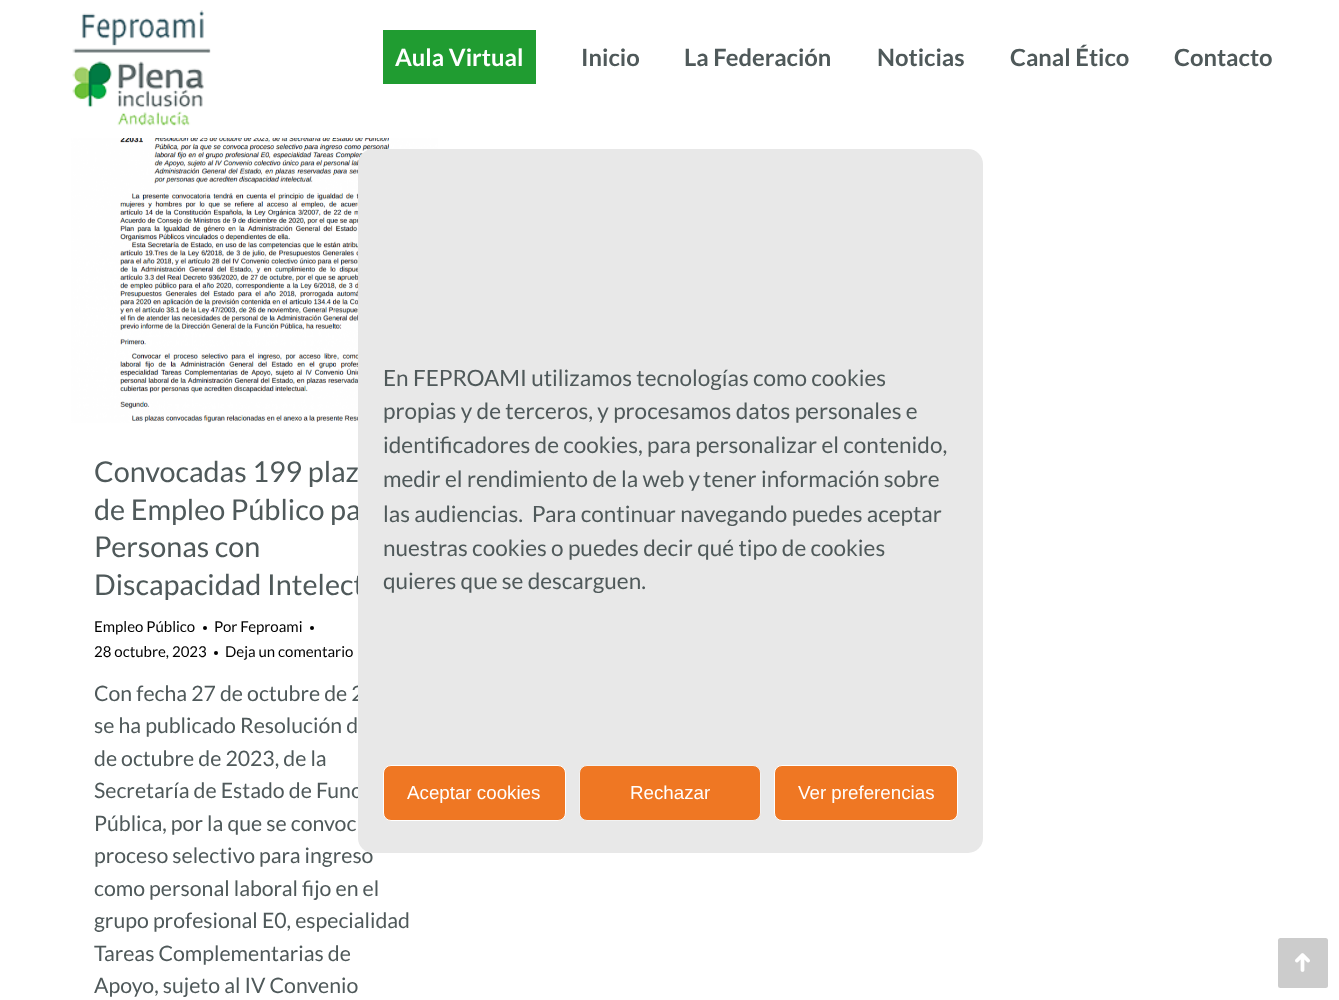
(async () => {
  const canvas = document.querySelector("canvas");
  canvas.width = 1339;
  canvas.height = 1000;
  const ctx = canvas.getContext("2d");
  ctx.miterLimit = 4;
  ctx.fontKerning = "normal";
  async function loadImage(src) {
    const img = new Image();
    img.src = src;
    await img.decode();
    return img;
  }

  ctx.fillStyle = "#ffffff";
  ctx.fillRect(0, 0, 1339, 1000);
  ctx.drawImage(await loadImage("img/1.png"), 72, 10, 139, 116);
  ctx.fillStyle = "#209c31";
  ctx.fillRect(383, 30, 153, 54);
  ctx.drawImage(await loadImage("img/2.png"), 71, 138, 367, 285);
  ctx.fillStyle = "#000000";
  ctx.beginPath();
  ctx.arc(205, 628, 2, 0, Math.PI * 2);
  ctx.fill();
  ctx.beginPath();
  ctx.arc(312, 628, 2, 0, Math.PI * 2);
  ctx.fill();
  ctx.beginPath();
  ctx.arc(216, 653, 2, 0, Math.PI * 2);
  ctx.fill();
  ctx.fillStyle = "#cccccc";
  ctx.beginPath();
  ctx.roundRect(1278, 938, 50, 50, 2.5);
  ctx.fill();
  ctx.drawImage(await loadImage("img/3.png"), 1295, 953, 15, 19);
  ctx.font = "bold 23.75px Lato";
  ctx.fillStyle = "#ffffff";
  ctx.fillText("Aula Virtual", 395, 66);
  ctx.fillStyle = "#4f595a";
  for (const [text, x, y] of [
    ["Inicio", 581, 66],
    ["La Federación", 684, 66],
    ["Noticias", 877, 66],
    ["Canal Ético", 1010, 66],
    ["Contacto", 1174, 66],
  ]) {
    ctx.fillText(text, x, y);
  }
  ctx.font = "28.75px Lato";
  for (const [text, x, y] of [
    ["Convocadas 199 plaz", 94, 482],
    ["de Empleo Público pa", 94, 520],
    ["Personas con", 94, 557],
    ["Discapacidad Intelect", 94, 595],
  ]) {
    ctx.fillText(text, x, y);
  }
  ctx.font = "15px Lato";
  ctx.fillStyle = "#000000";
  for (const [text, x, y] of [
    ["Empleo Público", 94, 632],
    ["Por Feproami", 214, 632],
    ["28 octubre, 2023", 94, 657],
    ["Deja un comentario", 225, 657],
  ]) {
    ctx.fillText(text, x, y);
  }
  ctx.font = "21.25px Lato";
  ctx.fillStyle = "#4f595a";
  for (const [text, x, y] of [
    ["Con fecha 27 de octubre de 2", 94, 701],
    ["se ha publicado Resolución d", 94, 733],
    ["de octubre de 2023, de la", 94, 766],
    ["Secretaría de Estado de Func", 94, 798],
    ["Pública, por la que se convoc", 94, 831],
    ["proceso selectivo para ingreso", 94, 863],
    ["como personal laboral fijo en el", 94, 896],
    ["grupo profesional E0, especialidad", 94, 928],
    ["Tareas Complementarias de", 94, 961],
    ["Apoyo, sujeto al IV Convenio", 94, 993],
  ]) {
    ctx.fillText(text, x, y);
  }
  ctx.fillStyle = "#e8e8e8";
  ctx.beginPath();
  ctx.roundRect(358, 149, 625, 704, 15);
  ctx.fill();
  ctx.font = "22.5px Lato";
  ctx.fillStyle = "#4f595a";
  for (const [text, x, y] of [
    ["En FEPROAMI utilizamos tecnologías como cookies", 383, 386],
    ["propias y de terceros, y procesamos datos personales e", 383, 419],
    ["identificadores de cookies, para personalizar el contenido,", 383, 453],
    ["medir el rendimiento de la web y", 383, 487],
    ["tener información sobre", 703, 487],
    ["las audiencias.  Para continuar navegando puedes aceptar", 383, 522],
    ["nuestras cookies o puedes decir qué tipo de cookies", 383, 556],
    ["quieres que se descarguen.", 383, 589],
  ]) {
    ctx.fillText(text, x, y);
  }
  ctx.fillStyle = "#ef7723";
  ctx.beginPath();
  ctx.roundRect(383.5, 765.5, 182, 55, 7.5);
  ctx.fill();
  ctx.strokeStyle = "#ffffff";
  ctx.stroke();
  ctx.font = "18.75px Liberation Sans";
  ctx.fillStyle = "#ffffff";
  ctx.fillText("Aceptar cookies", 407, 799);
  ctx.fillStyle = "#ef7723";
  ctx.beginPath();
  ctx.roundRect(579.5, 765.5, 181, 55, 7.5);
  ctx.fill();
  ctx.strokeStyle = "#f2f2f2";
  ctx.stroke();
  ctx.fillStyle = "#ffffff";
  ctx.fillText("Rechazar", 630, 799);
  ctx.fillStyle = "#ef7723";
  ctx.beginPath();
  ctx.roundRect(774.5, 765.5, 183, 55, 7.5);
  ctx.fill();
  ctx.strokeStyle = "#ffffff";
  ctx.stroke();
  ctx.fillStyle = "#ffffff";
  ctx.fillText("Ver preferencias", 798, 799);
})();
